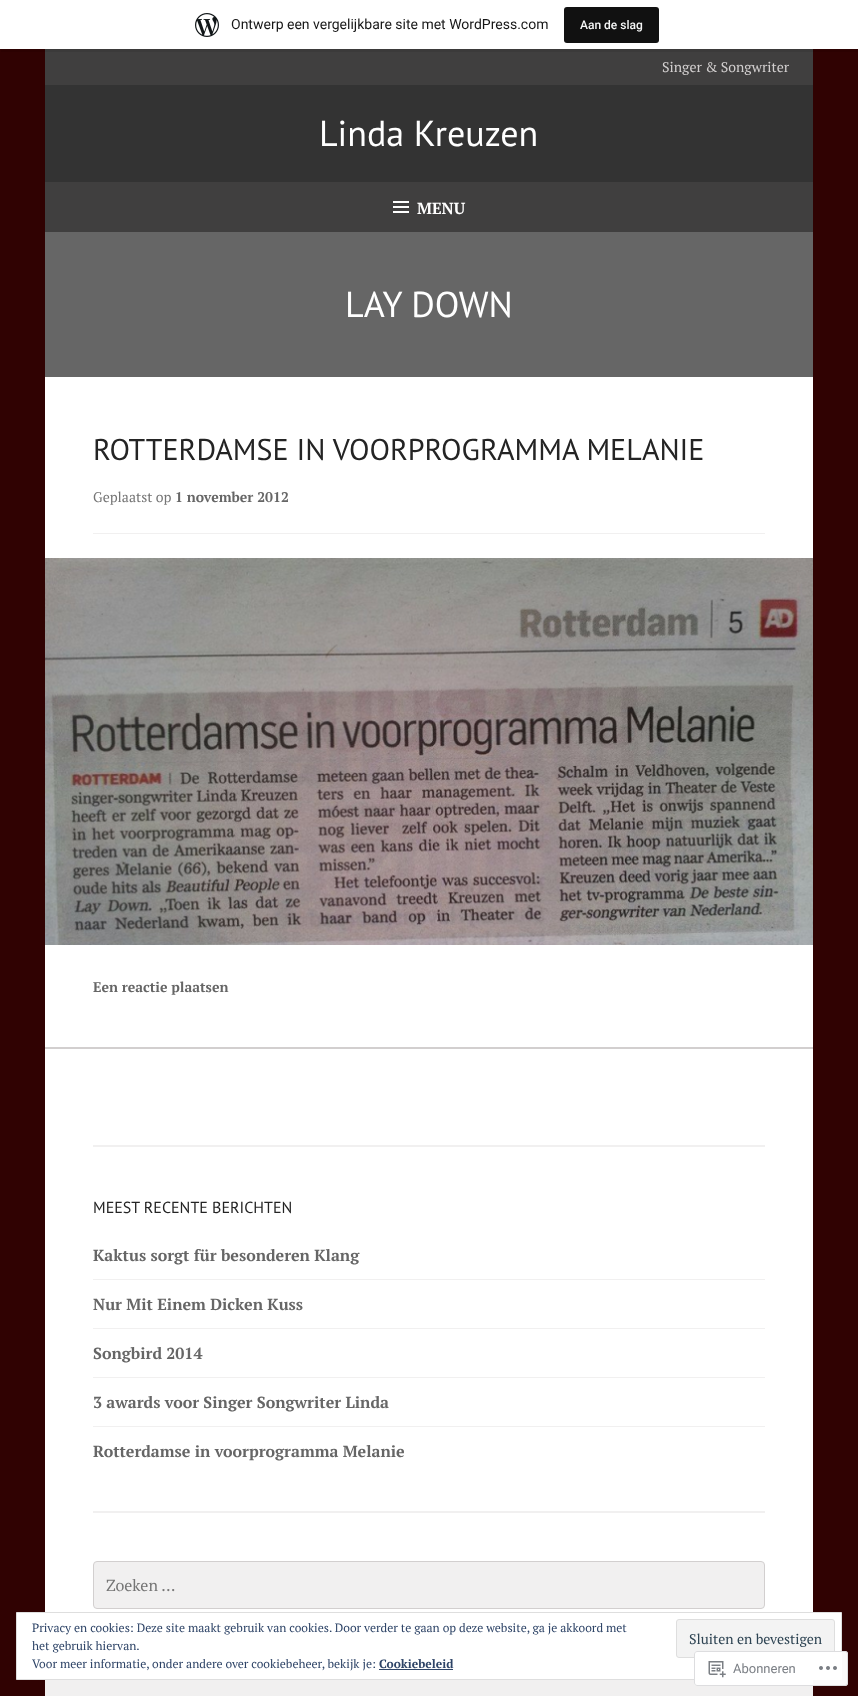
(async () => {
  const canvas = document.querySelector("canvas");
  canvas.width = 858;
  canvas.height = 1696;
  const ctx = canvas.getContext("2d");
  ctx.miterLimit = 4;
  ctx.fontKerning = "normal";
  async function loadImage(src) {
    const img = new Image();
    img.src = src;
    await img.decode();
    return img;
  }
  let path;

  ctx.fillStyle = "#300202";
  ctx.fillRect(0, 0, 858, 1696);
  ctx.fillStyle = "#403f3f";
  ctx.fillRect(45, 49, 768, 36);
  ctx.fillStyle = "rgba(0, 0, 0, 0.08)";
  path = new Path2D("M1 49V52H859V3H858V49Z");
  ctx.fill(path);
  ctx.fillStyle = "#ffffff";
  ctx.fillRect(0, 0, 858, 49);
  ctx.drawImage(await loadImage("img/1.png"), 195, 13, 24, 24);
  ctx.fillStyle = "#111111";
  ctx.beginPath();
  ctx.roundRect(564, 7, 95, 36, 3);
  ctx.fill();
  for (const [x, y, w, h, color] of [
    [45, 377, 768, 1235, "#ffffff"],
    [45, 85, 768, 97, "#333333"],
    [45, 182, 768, 50, "#403f3f"],
  ]) {
    ctx.fillStyle = color;
    ctx.fillRect(x, y, w, h);
  }
  ctx.drawImage(await loadImage("img/2.png"), 393, 201, 16, 12);
  ctx.fillStyle = "#666666";
  ctx.fillRect(45, 232, 768, 145);
  ctx.fillStyle = "#f1f0f0";
  ctx.fillRect(93, 533, 672, 1);
  ctx.drawImage(await loadImage("img/3.png"), 45, 558, 768, 387);
  for (const [x, y, w, h, color] of [
    [45, 1047, 768, 2, "#d2cfcf"],
    [93, 1145, 672, 2, "#f1f0f0"],
    [93, 1279, 672, 1, "#f1f0f0"],
    [93, 1328, 672, 1, "#f1f0f0"],
    [93, 1377, 672, 1, "#f1f0f0"],
    [93, 1426, 672, 1, "#f1f0f0"],
    [93, 1511, 672, 2, "#f1f0f0"],
  ]) {
    ctx.fillStyle = color;
    ctx.fillRect(x, y, w, h);
  }
  ctx.beginPath();
  ctx.roundRect(93.5, 1561.5, 671, 47, 3.5);
  ctx.fill();
  ctx.strokeStyle = "#d2cfcf";
  ctx.stroke();
  ctx.fillRect(45, 1680, 768, 16);
  ctx.fillStyle = "#ffffff";
  ctx.beginPath();
  ctx.rect(16.5, 1612.5, 825, 67);
  ctx.fill();
  ctx.strokeStyle = "#dedede";
  ctx.stroke();
  ctx.fillStyle = "#f3f3f3";
  ctx.beginPath();
  ctx.roundRect(676.5, 1619.5, 158, 38, 2.5);
  ctx.fill();
  ctx.stroke();
  ctx.fillStyle = "#2e4467";
  ctx.fillRect(379, 1669, 74, 1);
  ctx.fillStyle = "rgba(255, 255, 255, 0.98)";
  ctx.beginPath();
  ctx.roundRect(694, 1651, 154, 35, 3);
  ctx.fill();
  ctx.beginPath();
  ctx.roundRect(694.5, 1651.5, 153, 34, 2.5);
  ctx.strokeStyle = "rgba(220, 220, 222, 0.98)";
  ctx.stroke();
  ctx.drawImage(await loadImage("img/4.png"), 708, 1661, 18, 17);
  ctx.drawImage(await loadImage("img/5.png"), 819, 1666, 18, 4);
  ctx.font = "14px Roboto";
  ctx.fillStyle = "#171717";
  ctx.fillText("Ontwerp een vergelijkbare site met WordPress.com", 231, 29);
  ctx.font = "500 12px Roboto";
  ctx.fillStyle = "#f6f7f7";
  ctx.fillText("Aan de slag", 580, 29);
  ctx.font = "14px PT Serif";
  ctx.fillStyle = "#d2cfcf";
  ctx.fillText("Singer & Songwriter", 662, 72);
  ctx.font = "36px PT Sans";
  ctx.fillStyle = "#ffffff";
  ctx.fillText("Linda Kreuzen", 319, 146);
  ctx.font = "bold 16px PT Serif";
  ctx.fillText("MENU", 417, 214);
  ctx.font = "36px PT Sans";
  ctx.fillText("LAY DOWN", 345, 317);
  ctx.font = "30px PT Sans";
  ctx.fillStyle = "#242424";
  ctx.fillText("ROTTERDAMSE IN VOORPROGRAMMA MELANIE", 93, 460);
  ctx.font = "14px PT Serif";
  ctx.fillStyle = "#757575";
  ctx.fillText("Geplaatst op", 93, 502);
  ctx.font = "bold 14px PT Serif";
  ctx.fillStyle = "#666666";
  ctx.fillText("1 november 2012", 175, 502);
  ctx.fillText("Een reactie plaatsen", 93, 992);
  ctx.font = "16px PT Sans";
  ctx.fillStyle = "#242424";
  ctx.fillText("MEEST RECENTE BERICHTEN", 93, 1213);
  ctx.font = "bold 16px PT Serif";
  ctx.fillStyle = "#666666";
  for (const [text, x, y] of [
    ["Kaktus sorgt für besonderen Klang", 93, 1261],
    ["Nur Mit Einem Dicken Kuss", 93, 1310],
    ["Songbird 2014", 93, 1359],
    ["3 awards voor Singer Songwriter Linda", 93, 1408],
    ["Rotterdamse in voorprogramma Melanie", 93, 1457],
  ]) {
    ctx.fillText(text, x, y);
  }
  ctx.font = "16px PT Serif";
  ctx.fillStyle = "#757575";
  ctx.fillText("Zoeken …", 106, 1591);
  ctx.font = "12px PT Serif";
  ctx.fillStyle = "#2e4467";
  ctx.fillText("Privacy en cookies: Deze site maakt gebruik van cookies. Door verder te gaan op deze website, ga je akkoord met", 32, 1632);
  ctx.fillText("het gebruik hiervan.", 32, 1650);
  ctx.font = "14px PT Serif";
  ctx.fillStyle = "#2e4453";
  ctx.fillText("Sluiten en bevestigen", 689, 1644);
  ctx.font = "12px PT Serif";
  ctx.fillStyle = "#2e4467";
  ctx.fillText("Voor meer informatie, onder andere over cookiebeheer, bekijk je:", 32, 1668);
  ctx.font = "bold 12px PT Serif";
  ctx.fillText("Cookiebeleid", 379, 1668);
  ctx.font = "13px Roboto";
  ctx.fillStyle = "#7b7f85";
  ctx.fillText("Abonneren", 733, 1673);
})();
